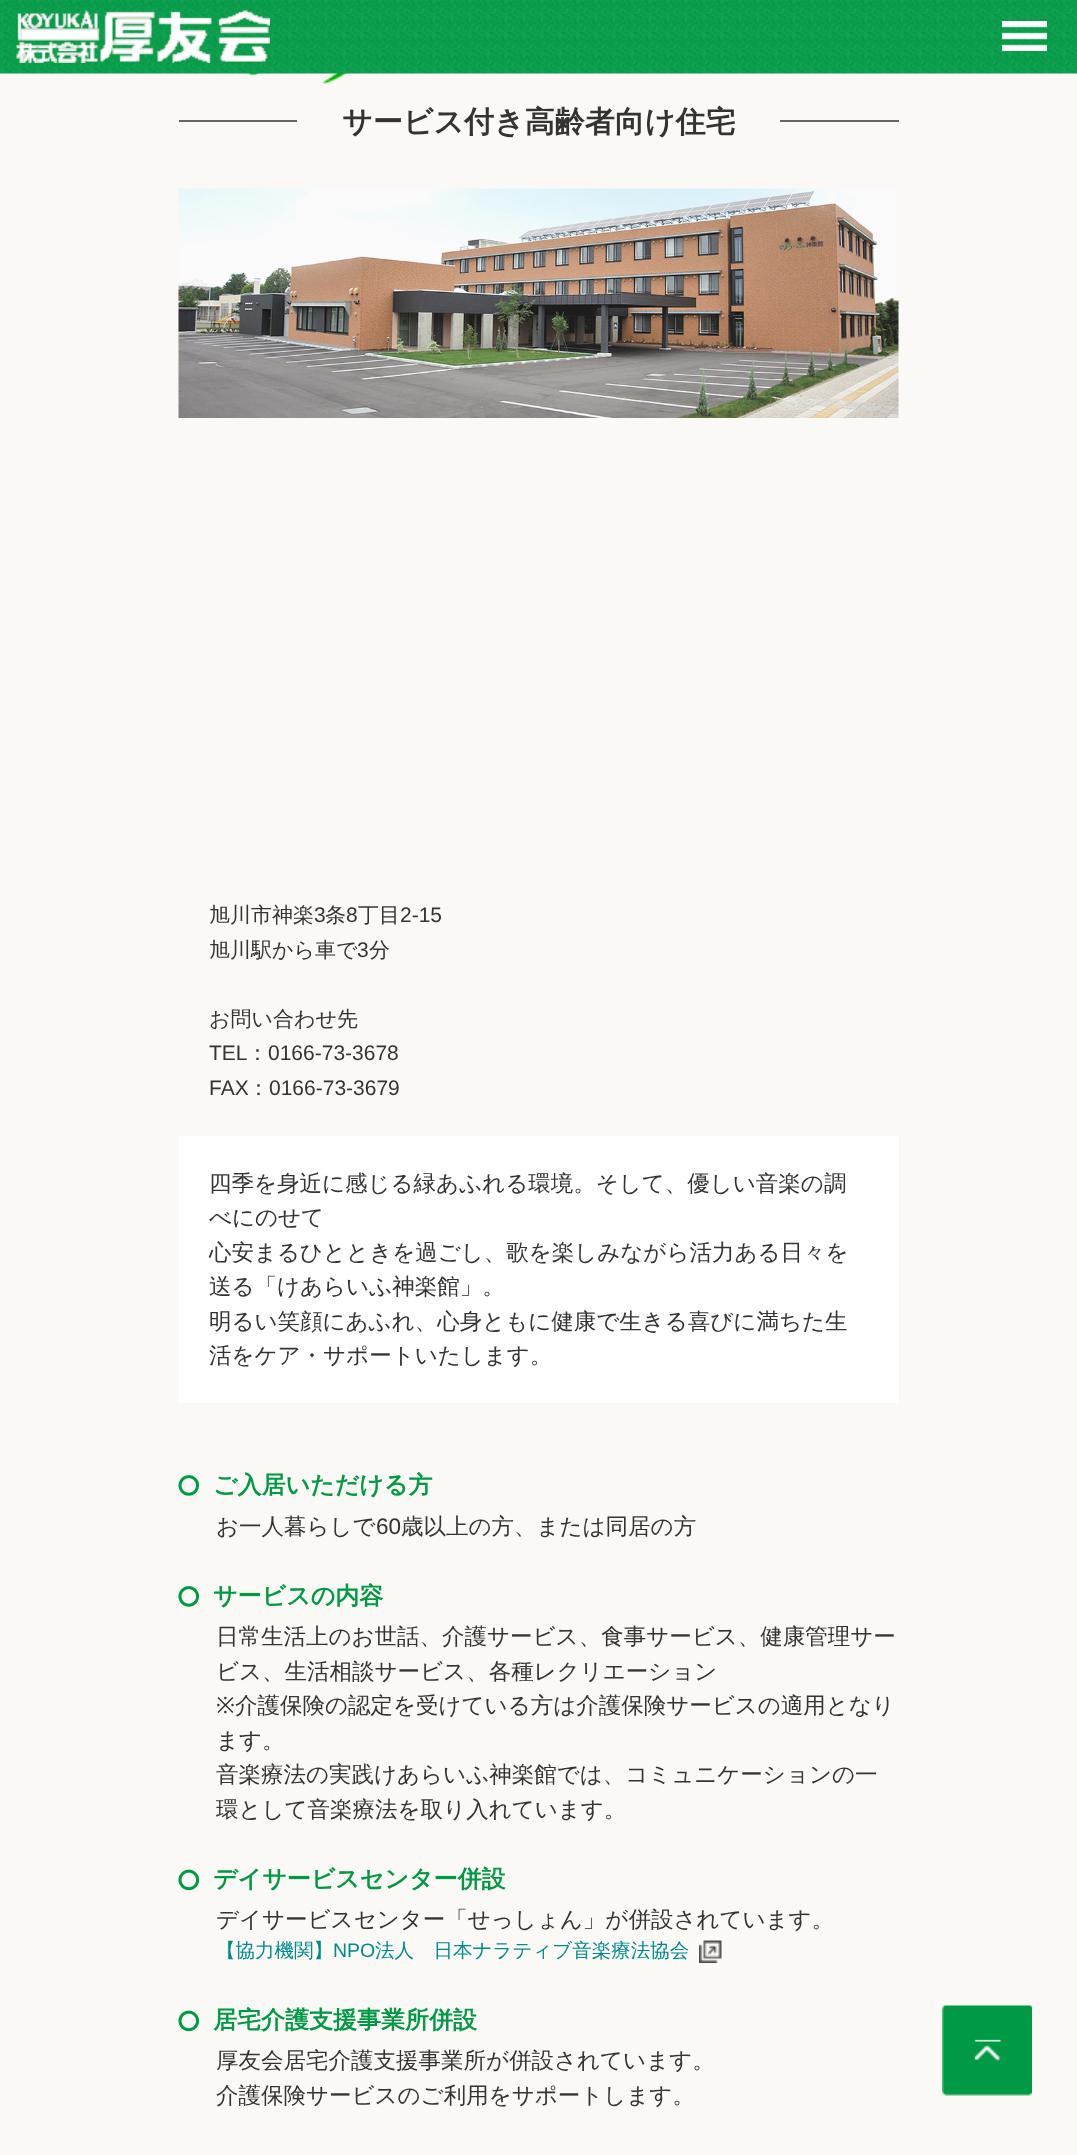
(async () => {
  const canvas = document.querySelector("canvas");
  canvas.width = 1077;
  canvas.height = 2155;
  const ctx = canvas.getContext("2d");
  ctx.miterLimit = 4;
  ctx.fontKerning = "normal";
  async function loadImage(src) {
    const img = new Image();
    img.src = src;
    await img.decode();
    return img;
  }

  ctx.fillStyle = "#faf9f5";
  ctx.fillRect(0, 0, 1077, 2155);
  ctx.drawImage(await loadImage("img/4.png"), 247, 73, 102, 11);
  ctx.drawImage(await loadImage("img/1.png"), 0, 0, 1077, 74);
  ctx.drawImage(await loadImage("img/2.png"), 16, 10, 254, 53);
  ctx.drawImage(await loadImage("img/3.png"), 1002, 21, 45, 30);
  ctx.fillStyle = "#666666";
  ctx.fillRect(179, 120, 720, 2);
  ctx.fillStyle = "#faf9f5";
  ctx.fillRect(297, 120, 483, 2);
  ctx.drawImage(await loadImage("img/5.png"), 178, 188, 721, 230);
  ctx.fillStyle = "#ffffff";
  ctx.fillRect(179, 1136, 720, 267);
  ctx.drawImage(await loadImage("img/6.png"), 178, 1475, 22, 21);
  ctx.drawImage(await loadImage("img/6.png"), 178, 1586, 22, 21);
  ctx.drawImage(await loadImage("img/7.png"), 178, 1869, 22, 22);
  ctx.drawImage(await loadImage("img/8.png"), 699, 1940, 23, 23);
  ctx.drawImage(await loadImage("img/7.png"), 178, 2010, 22, 22);
  ctx.drawImage(await loadImage("img/9.png"), 942, 2005, 90, 91);
  ctx.font = "bold 30px WenQuanYi Zen Hei";
  ctx.fillStyle = "#333333";
  ctx.fillText("サービス付き高齢者向け住宅", 342, 132);
  ctx.font = "500 21px WenQuanYi Zen Hei";
  ctx.fillText("旭川市神楽", 209, 922);
  ctx.font = "21px Liberation Sans";
  ctx.fillText("3", 314, 922);
  ctx.font = "500 21px WenQuanYi Zen Hei";
  ctx.fillText("条", 325, 922);
  ctx.font = "21px Liberation Sans";
  ctx.fillText("8", 346, 922);
  ctx.font = "500 21px WenQuanYi Zen Hei";
  ctx.fillText("丁目", 358, 922);
  ctx.font = "21px Liberation Sans";
  ctx.fillText("2-15", 400, 922);
  ctx.font = "500 21px WenQuanYi Zen Hei";
  ctx.fillText("旭川駅から車で", 209, 957);
  ctx.font = "21px Liberation Sans";
  ctx.fillText("3", 357, 957);
  ctx.font = "500 21px WenQuanYi Zen Hei";
  ctx.fillText("分", 369, 957);
  ctx.fillText("お問い合わせ先", 209, 1026);
  ctx.font = "21px Liberation Sans";
  ctx.fillText("TEL", 209, 1060);
  ctx.font = "500 21px WenQuanYi Zen Hei";
  ctx.fillText("：", 247, 1060);
  ctx.font = "21px Liberation Sans";
  ctx.fillText("0166-73-3678", 268, 1060);
  ctx.fillText("FAX", 209, 1095);
  ctx.font = "500 21px WenQuanYi Zen Hei";
  ctx.fillText("：", 248, 1095);
  ctx.font = "21px Liberation Sans";
  ctx.fillText("0166-73-3679", 269, 1095);
  ctx.font = "500 22.5px WenQuanYi Zen Hei";
  for (const [text, x, y] of [
    ["四季を身近に感じる緑あふれる環境。そして、優しい音楽の調", 209, 1191],
    ["べにのせて", 209, 1225],
    ["心安まるひとときを過ごし、歌を楽しみながら活力ある日々を", 209, 1260],
    ["送る「けあらいふ神楽館」。", 209, 1294],
    ["明るい笑顔にあふれ、心身ともに健康で生きる喜びに満ちた生", 209, 1329],
    ["活をケア・サポートいたします。", 209, 1363],
  ]) {
    ctx.fillText(text, x, y);
  }
  ctx.font = "bold 24px WenQuanYi Zen Hei";
  ctx.fillStyle = "#009944";
  ctx.fillText("ご入居いただける方", 213, 1493);
  ctx.font = "500 22.5px WenQuanYi Zen Hei";
  ctx.fillStyle = "#333333";
  ctx.fillText("お一人暮らしで", 216, 1534);
  ctx.font = "22.5px Liberation Sans";
  ctx.fillText("60", 376, 1534);
  ctx.font = "500 22.5px WenQuanYi Zen Hei";
  ctx.fillText("歳以上の方、または同居の方", 401, 1534);
  ctx.font = "bold 24px WenQuanYi Zen Hei";
  ctx.fillStyle = "#009944";
  ctx.fillText("サービスの内容", 213, 1604);
  ctx.font = "500 22.5px WenQuanYi Zen Hei";
  ctx.fillStyle = "#333333";
  ctx.fillText("日常生活上のお世話、介護サービス、食事サービス、健康管理サー", 216, 1644);
  ctx.fillText("ビス、生活相談サービス、各種レクリエーション", 216, 1679);
  ctx.font = "22.5px Noto Sans";
  ctx.fillText("※", 216, 1713);
  ctx.font = "500 22.5px WenQuanYi Zen Hei";
  for (const [text, x, y] of [
    ["介護保険の認定を受けている方は介護保険サービスの適用となり", 235, 1713],
    ["ます。", 216, 1748],
    ["音楽療法の実践けあらいふ神楽館では、コミュニケーションの一", 216, 1782],
    ["環として音楽療法を取り入れています。", 216, 1817],
  ]) {
    ctx.fillText(text, x, y);
  }
  ctx.font = "bold 24px WenQuanYi Zen Hei";
  ctx.fillStyle = "#009944";
  ctx.fillText("デイサービスセンター併設", 213, 1887);
  ctx.font = "500 22.5px WenQuanYi Zen Hei";
  ctx.fillStyle = "#333333";
  ctx.fillText("デイサービスセンター「せっしょん」が併設されています。", 216, 1927);
  ctx.font = "500 19.5px WenQuanYi Zen Hei";
  ctx.fillStyle = "#008c8c";
  ctx.fillText("【協力機関】", 216, 1957);
  ctx.font = "19.5px Liberation Sans";
  ctx.fillText("NPO", 333, 1957);
  ctx.font = "500 19.5px WenQuanYi Zen Hei";
  ctx.fillText("法人　日本ナラティブ音楽療法協会", 375, 1957);
  ctx.font = "bold 24px WenQuanYi Zen Hei";
  ctx.fillStyle = "#009944";
  ctx.fillText("居宅介護支援事業所併設", 213, 2028);
  ctx.font = "500 22.5px WenQuanYi Zen Hei";
  ctx.fillStyle = "#333333";
  ctx.fillText("厚友会居宅介護支援事業所が併設されています。", 216, 2068);
  ctx.fillText("介護保険サービスのご利用をサポートします。", 216, 2103);
})();
